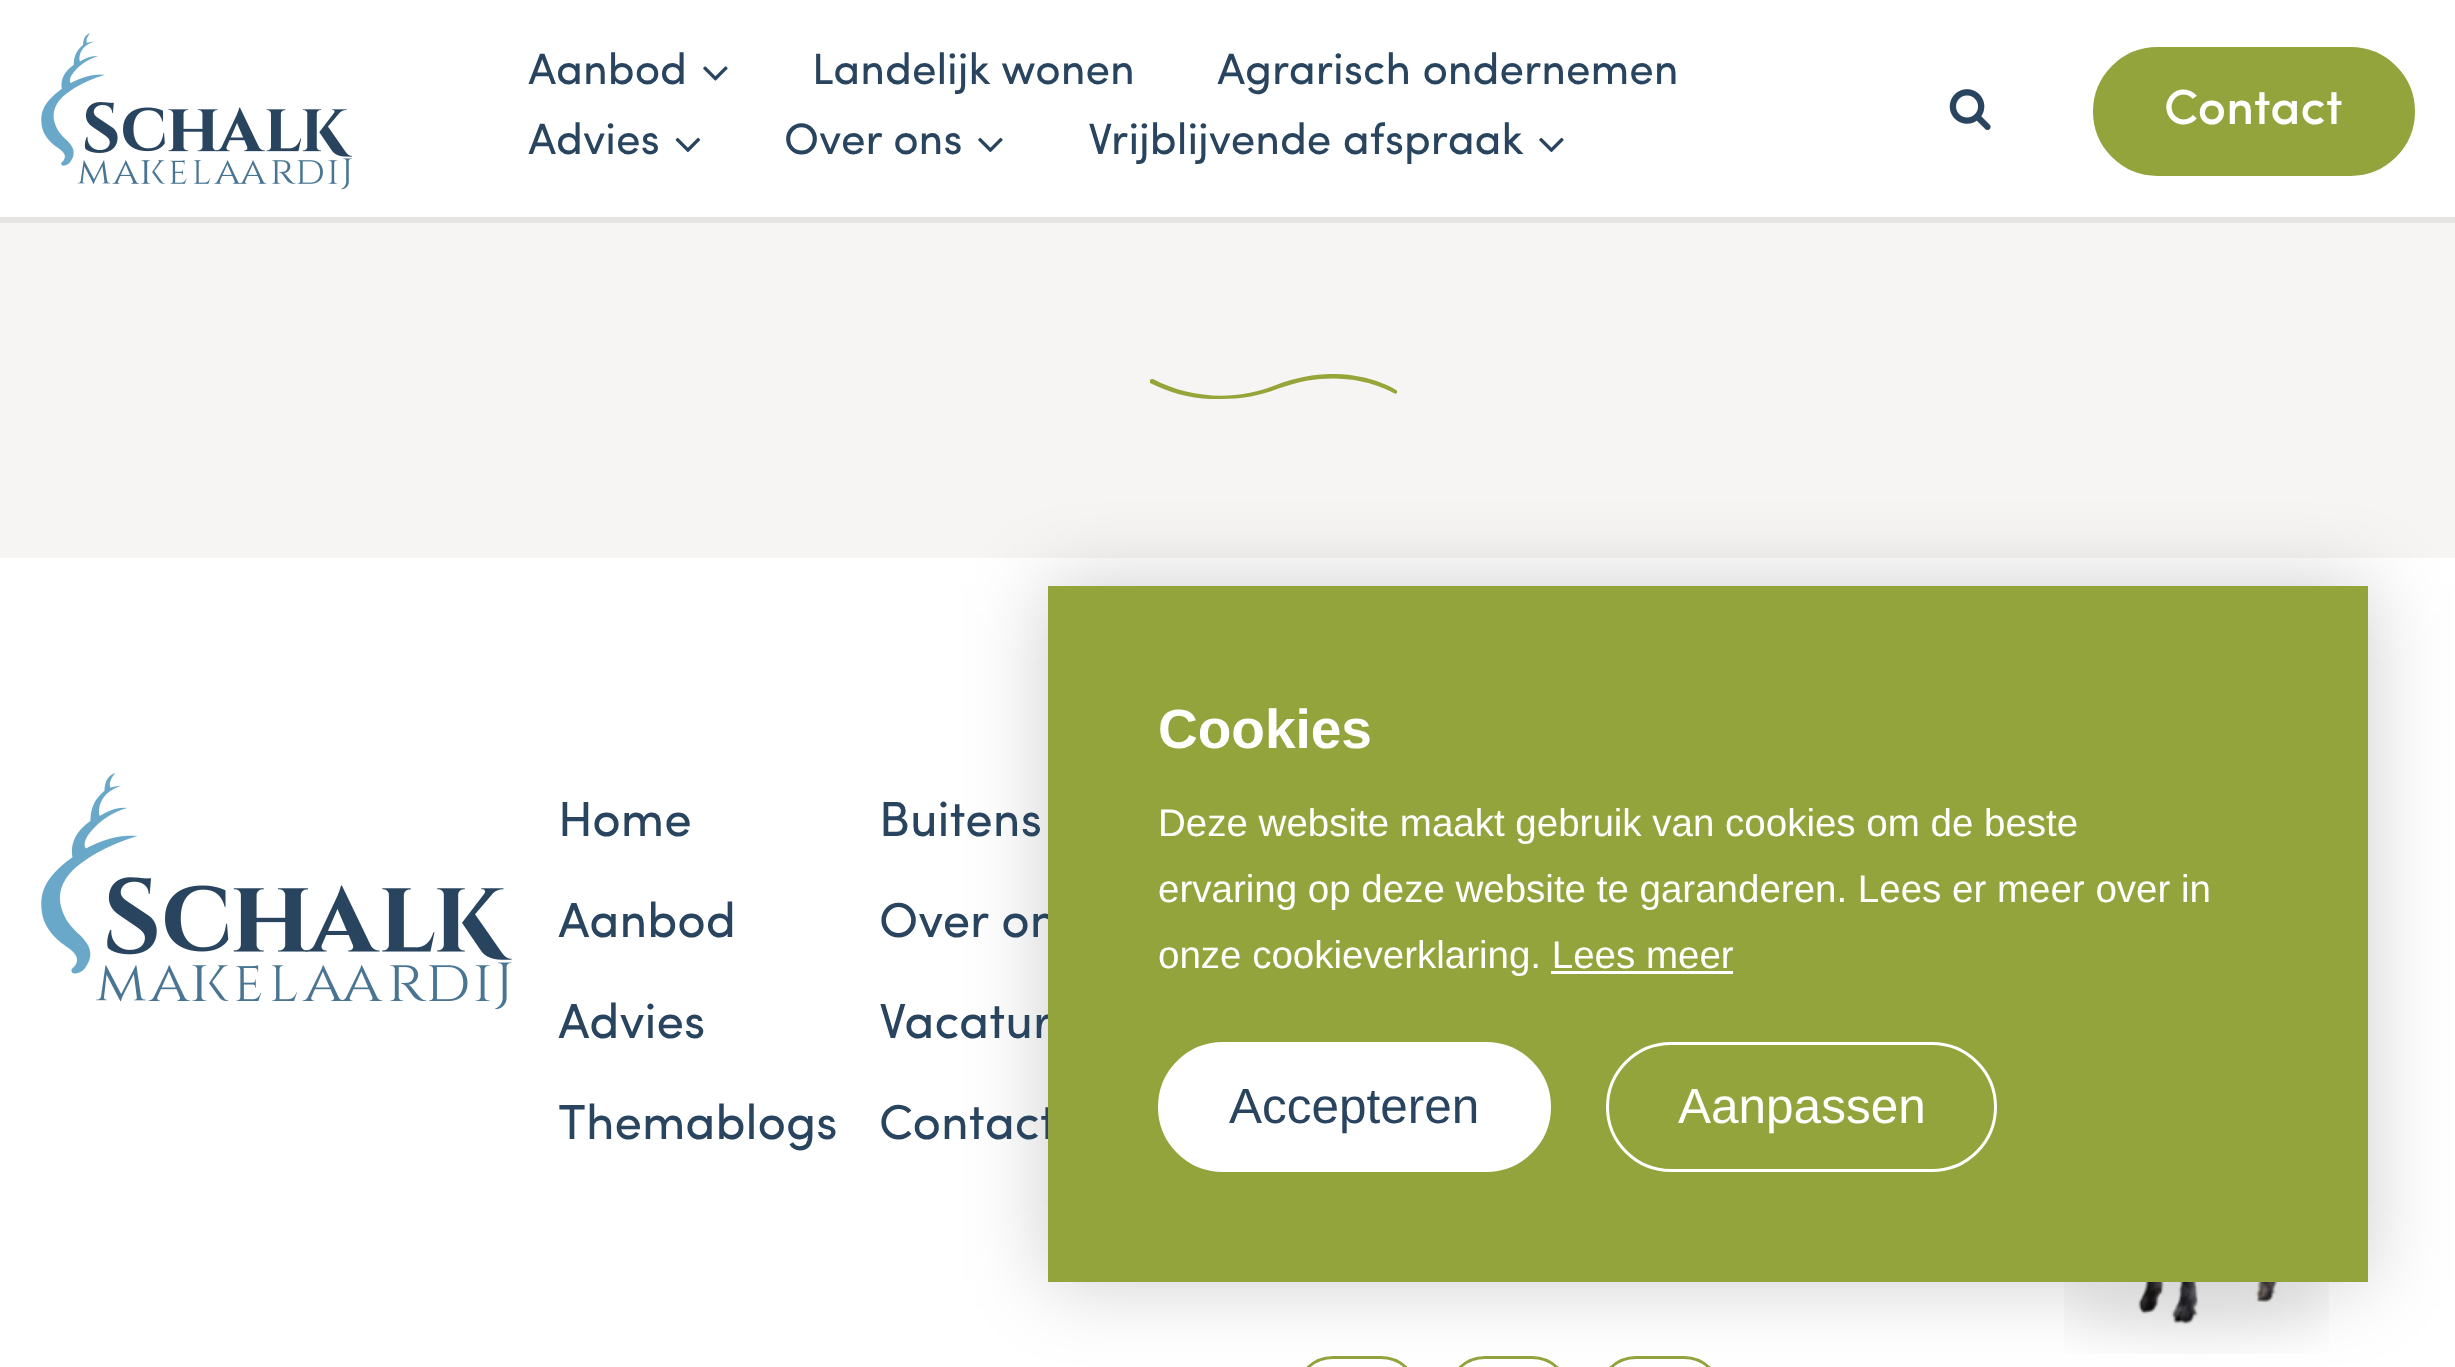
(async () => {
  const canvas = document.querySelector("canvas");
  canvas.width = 2455;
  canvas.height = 1367;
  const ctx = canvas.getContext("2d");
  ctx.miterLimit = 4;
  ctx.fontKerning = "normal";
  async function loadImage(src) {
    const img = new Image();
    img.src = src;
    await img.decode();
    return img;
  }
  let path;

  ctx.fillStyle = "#f7f5f4";
  ctx.fillRect(0, 0, 2455, 1367);
  ctx.fillStyle = "#ffffff";
  ctx.fillRect(0, 0, 2455, 217);
  ctx.fillStyle = "#e7e5e4";
  ctx.fillRect(0, 217, 2455, 6);
  ctx.drawImage(await loadImage("img/1.png"), 41, 33, 311, 157);
  ctx.drawImage(await loadImage("img/2.png"), 703, 66, 25, 15);
  ctx.drawImage(await loadImage("img/3.png"), 675, 137, 26, 16);
  ctx.drawImage(await loadImage("img/4.png"), 978, 137, 25, 16);
  ctx.drawImage(await loadImage("img/4.png"), 1539, 137, 25, 16);
  ctx.drawImage(await loadImage("img/5.png"), 1949, 89, 42, 41);
  ctx.fillStyle = "#93a43d";
  ctx.beginPath();
  ctx.roundRect(2094.5, 48.5, 319, 126, 63);
  ctx.fill();
  ctx.strokeStyle = "#93a43d";
  ctx.lineWidth = 3;
  ctx.stroke();
  ctx.save();
  ctx.beginPath();
  ctx.rect(1150, 374, 247, 25);
  ctx.clip();
  ctx.fillStyle = "#96a438";
  path = new Path2D("M1221 399C1196 400 1172 394 1150 383C1149 382 1149 381 1150 380C1150 379 1152 379 1153 379C1191 399 1236 401 1276 385C1346 358 1395 389 1396 390C1397 390 1398 392 1397 393C1396 394 1395 394 1394 393C1393 393 1346 363 1277 389C1259 396 1240 399 1221 399Z");
  ctx.fill(path);
  ctx.restore();
  ctx.fillStyle = "#ffffff";
  ctx.fillRect(0, 558, 2455, 809);
  ctx.drawImage(await loadImage("img/6.png"), 41, 773, 471, 236);
  ctx.drawImage(await loadImage("img/7.png"), 2064, 1282, 265, 72);
  ctx.beginPath();
  ctx.roundRect(1296.5, 1357.5, 121, 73, 60.5);
  ctx.stroke();
  ctx.beginPath();
  ctx.roundRect(1448.5, 1357.5, 120, 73, 60);
  ctx.stroke();
  ctx.beginPath();
  ctx.roundRect(1599.5, 1357.5, 121, 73, 60.5);
  ctx.stroke();
  ctx.fillStyle = "rgba(0, 0, 0, 0.2)";
  ctx.filter = "blur(41px)";
  ctx.beginPath();
  ctx.rect(1048, 586, 1320, 696);
  ctx.fill();
  ctx.filter = "none";
  ctx.font = "44px Sofia";
  ctx.fillStyle = "#29445e";
  for (const [text, x, y] of [
    ["Aanbod", 528, 84],
    ["Landelijk wonen", 812, 84],
    ["Agrarisch ondernemen", 1217, 84],
    ["Advies", 528, 154],
    ["Over ons", 784, 154],
    ["Vrijblijvende afspraak", 1088, 154],
  ]) {
    ctx.fillText(text, x, y);
  }
  ctx.font = "500 49.5px Sofia";
  ctx.fillStyle = "#ffffff";
  ctx.fillText("Contact", 2164, 124);
  ctx.font = "49.25px Sofia";
  ctx.fillStyle = "#29445e";
  for (const [text, x, y] of [
    ["Home", 558, 836],
    ["Aanbod", 558, 937],
    ["Advies", 558, 1038],
    ["Themablogs", 558, 1139],
    ["Buitens", 879, 836],
    ["Over on", 879, 937],
    ["Vacatur", 879, 1038],
    ["Contact", 879, 1139],
  ]) {
    ctx.fillText(text, x, y);
  }
  ctx.fillStyle = "#93a43d";
  ctx.fillRect(1048, 586, 1320, 696);
  ctx.font = "bold 55px Liberation Sans";
  ctx.fillStyle = "#ffffff";
  ctx.fillText("Cookies", 1158, 748);
  ctx.font = "38.5px Liberation Sans";
  for (const [text, x, y] of [
    ["Deze website maakt gebruik van cookies om de beste", 1158, 836],
    ["ervaring op deze website te garanderen. Lees er meer over in", 1158, 902],
    ["onze cookieverklaring. Lees meer", 1158, 968],
  ]) {
    ctx.fillText(text, x, y);
  }
  ctx.fillRect(1551, 971, 182, 3);
  ctx.beginPath();
  ctx.roundRect(1159.5, 1043.5, 390, 127, 63.5);
  ctx.fill();
  ctx.strokeStyle = "#ffffff";
  ctx.stroke();
  ctx.font = "49.5px Liberation Sans";
  ctx.fillStyle = "#29445e";
  ctx.fillText("Accepteren", 1229, 1123);
  ctx.beginPath();
  ctx.roundRect(1607.5, 1043.5, 388, 127, 63.5);
  ctx.stroke();
  ctx.fillStyle = "#ffffff";
  ctx.fillText("Aanpassen", 1678, 1123);
})();
